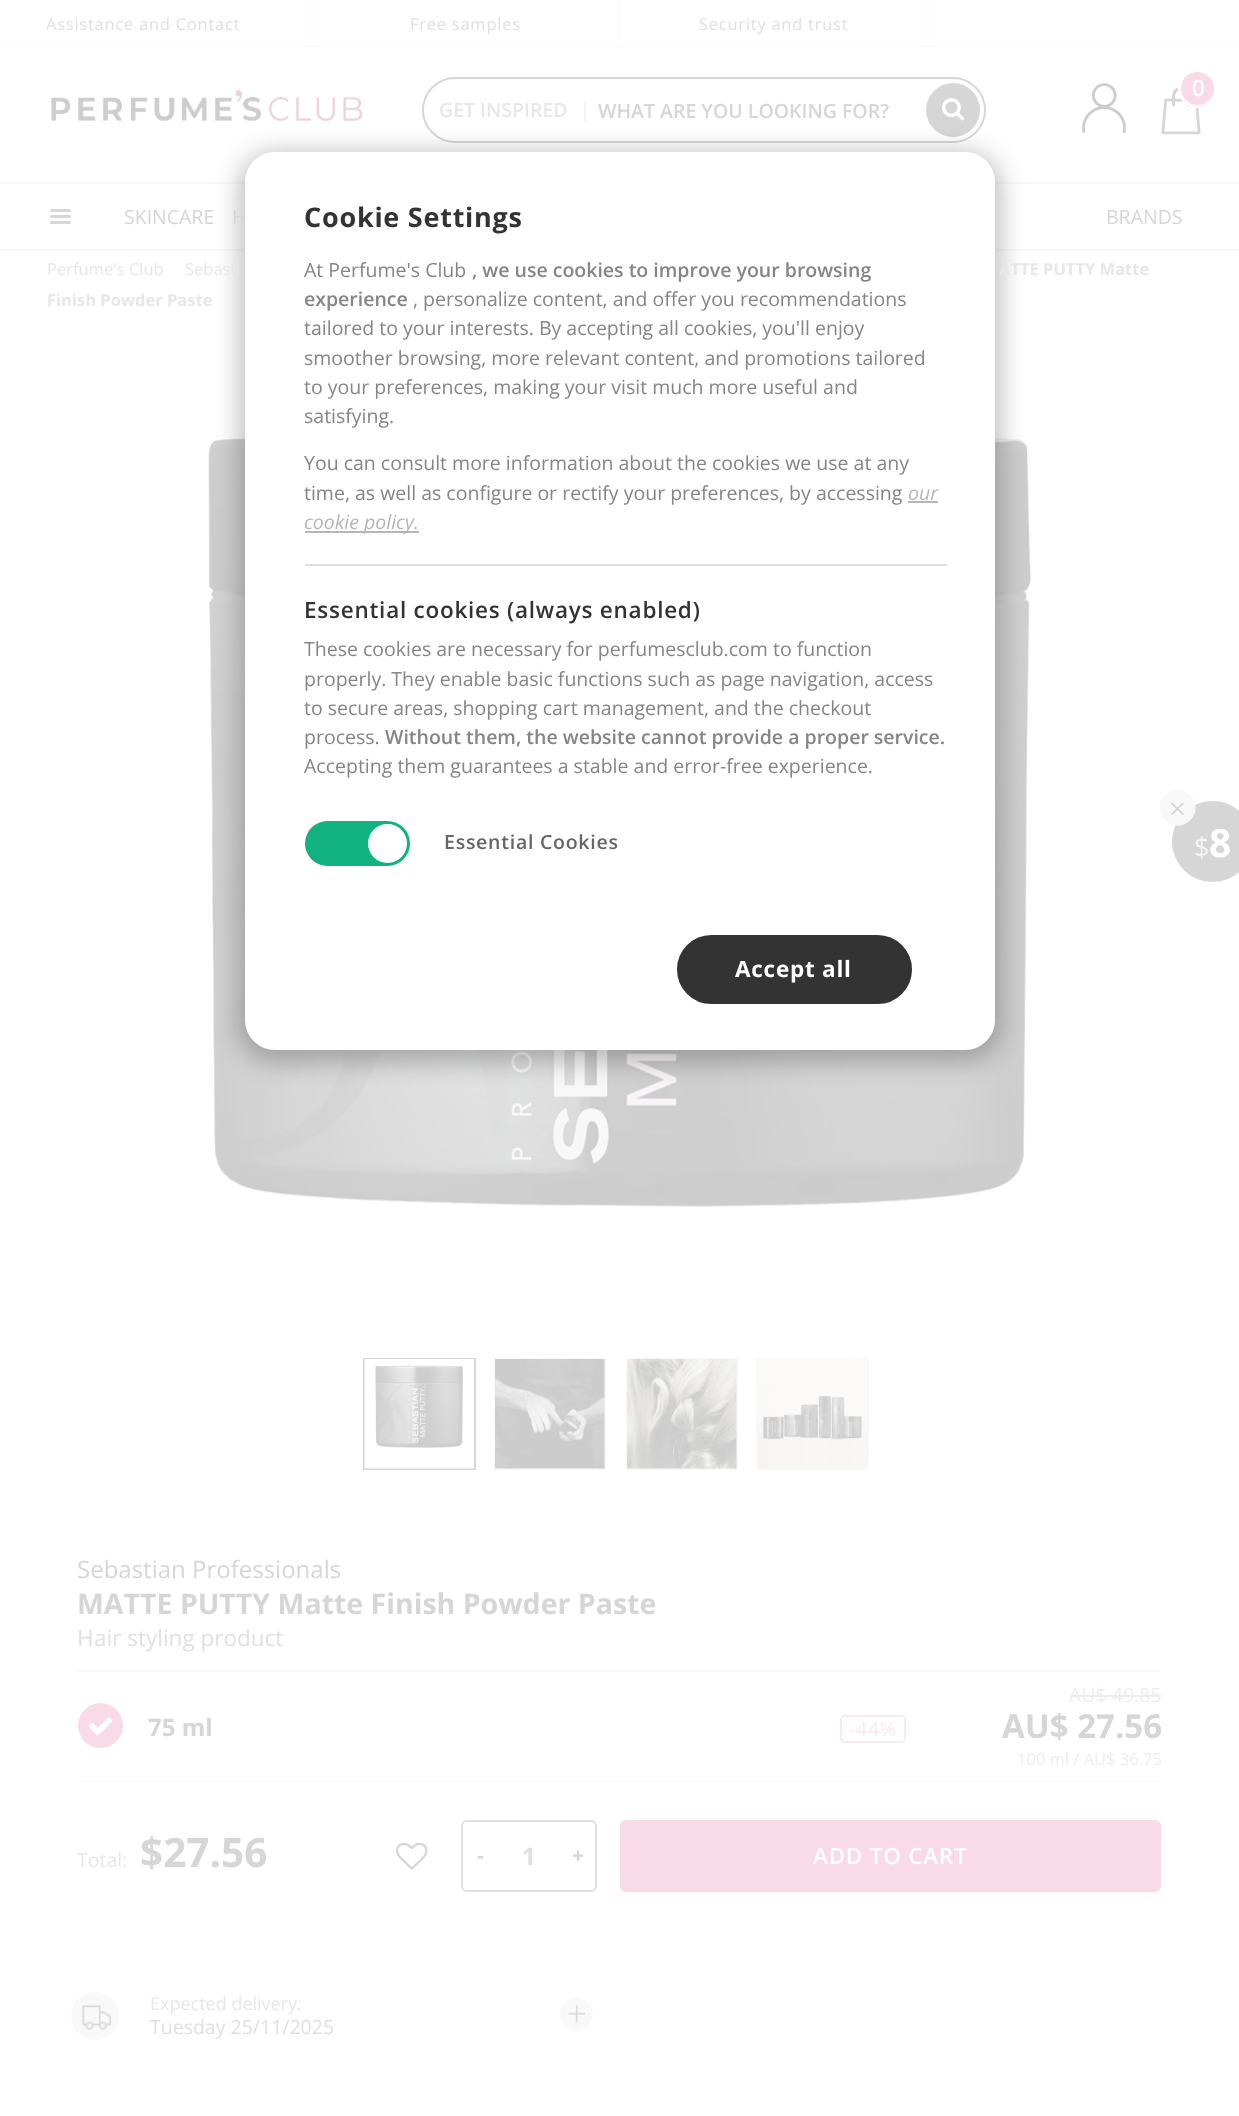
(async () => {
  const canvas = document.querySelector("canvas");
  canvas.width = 1239;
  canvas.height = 2116;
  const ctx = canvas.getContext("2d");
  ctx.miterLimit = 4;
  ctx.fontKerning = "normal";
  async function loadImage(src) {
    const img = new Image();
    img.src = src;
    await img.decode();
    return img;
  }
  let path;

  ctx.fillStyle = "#ffffff";
  ctx.fillRect(0, 0, 1239, 2116);
  for (const [x, y, w, h, color] of [
    [0, 45, 1239, 2, "#fcfcfc"],
    [311, 0, 2, 47, "#fcfcfc"],
    [618, 0, 2, 47, "#fcfcfc"],
    [927, 0, 2, 47, "#fcfcfc"],
  ]) {
    ctx.fillStyle = color;
    ctx.fillRect(x, y, w, h);
  }
  ctx.drawImage(await loadImage("img/1.png"), 51, 89, 312, 33);
  ctx.beginPath();
  ctx.roundRect(423, 78, 562, 64, 32);
  ctx.strokeStyle = "#d6d6d6";
  ctx.lineWidth = 2;
  ctx.stroke();
  ctx.fillStyle = "#f5f5f5";
  ctx.fillRect(584, 101, 2, 22);
  ctx.fillStyle = "#d6d6d6";
  ctx.beginPath();
  ctx.arc(953, 110, 27, 0, Math.PI * 2);
  ctx.fill();
  ctx.drawImage(await loadImage("img/2.png"), 942, 98, 23, 23);
  ctx.drawImage(await loadImage("img/3.png"), 1082, 83, 44, 51);
  ctx.drawImage(await loadImage("img/4.png"), 1161, 87, 40, 48);
  ctx.fillStyle = "#f9dbe7";
  ctx.beginPath();
  ctx.arc(1197.5, 88.5, 18, 0, Math.PI * 2);
  ctx.fill();
  ctx.strokeStyle = "#ffffff";
  ctx.lineWidth = 3;
  ctx.stroke();
  ctx.fillStyle = "#f8f8f8";
  ctx.fillRect(0, 182, 1239, 2);
  ctx.fillRect(0, 249, 1239, 2);
  ctx.fillStyle = "#d6d6d6";
  ctx.beginPath();
  ctx.roundRect(50, 215, 21, 3, 1.5);
  ctx.fill();
  ctx.beginPath();
  ctx.roundRect(50, 209, 21, 3, 1.5);
  ctx.fill();
  ctx.beginPath();
  ctx.roundRect(50, 221, 21, 3, 1.5);
  ctx.fill();
  ctx.drawImage(await loadImage("img/5.png"), 208, 434, 824, 775);
  ctx.fillStyle = "rgba(0, 0, 0, 0.25)";
  ctx.filter = "blur(12px)";
  ctx.beginPath();
  ctx.roundRect(239, 152, 762, 910, 36);
  ctx.fill();
  ctx.filter = "none";
  ctx.fillStyle = "#ffffff";
  ctx.beginPath();
  ctx.roundRect(246, 153, 748, 896, 29);
  ctx.fill();
  ctx.lineWidth = 2;
  ctx.stroke();
  for (const [x, y, w, h, color] of [
    [908, 501, 30, 2, "#b6b6b6"],
    [305, 531, 114, 2, "#b6b6b6"],
    [305, 564, 642, 2, "#dddddd"],
  ]) {
    ctx.fillStyle = color;
    ctx.fillRect(x, y, w, h);
  }
  ctx.fillStyle = "#11b27f";
  ctx.beginPath();
  ctx.roundRect(305, 821, 105, 45, 22.5);
  ctx.fill();
  ctx.fillStyle = "#ffffff";
  ctx.beginPath();
  ctx.arc(387.5, 843.5, 19.5, 0, Math.PI * 2);
  ctx.fill();
  ctx.fillStyle = "#333333";
  ctx.beginPath();
  ctx.roundRect(678.5, 936.5, 232, 66, 33);
  ctx.fill();
  ctx.strokeStyle = "#333333";
  ctx.lineWidth = 3;
  ctx.stroke();
  ctx.fillStyle = "#d6d6d6";
  ctx.beginPath();
  ctx.arc(1212.5, 841.5, 40.5, 0, Math.PI * 2);
  ctx.fill();
  ctx.fillStyle = "#f8f8f8";
  path = new Path2D("M1190 795C1197.5 802 1197.5 813.5 1190 820.5C1183 827.5 1172 827.5 1165 820.5C1157.5 813.5 1157.5 802 1165 795C1172 788 1183 788 1190 795Z");
  ctx.fill(path);
  ctx.fillStyle = "#cfcfcf";
  path = new Path2D("M1172 802.5L1184 814L1183 815L1171 803.5Z");
  ctx.fill(path);
  path = new Path2D("M1183 802.5L1184 803.5L1172 815L1171 814Z");
  ctx.fill(path);
  ctx.strokeStyle = "#d6d6d6";
  ctx.lineWidth = 2;
  ctx.strokeRect(364, 1359, 111, 110);
  ctx.strokeStyle = "#f8f8f8";
  ctx.strokeRect(495, 1359, 110, 110);
  ctx.strokeRect(627, 1359, 110, 110);
  ctx.strokeRect(757, 1359, 111, 110);
  ctx.drawImage(await loadImage("img/6.png"), 364, 1359, 110, 110);
  ctx.drawImage(await loadImage("img/7.png"), 495, 1359, 110, 110);
  ctx.drawImage(await loadImage("img/8.png"), 627, 1359, 110, 110);
  ctx.drawImage(await loadImage("img/9.png"), 757, 1359, 110, 110);
  ctx.fillStyle = "#f8f8f8";
  ctx.fillRect(78, 1670, 1083, 2);
  ctx.fillRect(78, 1781, 1083, 1);
  ctx.fillStyle = "#f9dbe7";
  ctx.beginPath();
  ctx.arc(100.5, 1725.5, 22.5, 0, Math.PI * 2);
  ctx.fill();
  ctx.drawImage(await loadImage("img/10.png"), 88, 1717, 25, 19);
  ctx.beginPath();
  ctx.roundRect(841, 1716, 64, 26, 4);
  ctx.strokeStyle = "#fae8f0";
  ctx.stroke();
  ctx.fillStyle = "#ededed";
  ctx.fillRect(1070, 1695, 91, 2);
  ctx.drawImage(await loadImage("img/11.png"), 396, 1842, 32, 28);
  ctx.beginPath();
  ctx.roundRect(462, 1821, 134, 70, 5);
  ctx.strokeStyle = "#e0e0e0";
  ctx.stroke();
  ctx.fillStyle = "#f9dbe7";
  ctx.beginPath();
  ctx.roundRect(620, 1820, 541, 72, 6);
  ctx.fill();
  ctx.fillStyle = "#f9f9f9";
  ctx.beginPath();
  ctx.arc(95, 2016, 24, 0, Math.PI * 2);
  ctx.fill();
  ctx.drawImage(await loadImage("img/12.png"), 82, 2005, 29, 25);
  ctx.beginPath();
  ctx.arc(576.5, 2014.5, 16.5, 0, Math.PI * 2);
  ctx.fill();
  ctx.drawImage(await loadImage("img/13.png"), 568, 2005, 17, 18);
  ctx.letterSpacing = "0.75px";
  ctx.font = "16.5px Open Sans";
  ctx.fillStyle = "#e0e0e0";
  for (const [text, x, y] of [
    ["Assistance and Contact", 46, 30],
    ["Free samples", 410, 30],
    ["Security and trust", 699, 30],
  ]) {
    ctx.fillText(text, x, y);
  }
  ctx.letterSpacing = "0px";
  ctx.font = "600 19.5px Open Sans";
  ctx.fillStyle = "#e7e7e7";
  ctx.fillText("GET INSPIRED", 439, 117);
  ctx.fillStyle = "#d6d6d6";
  ctx.fillText("WHAT ARE YOU LOOKING FOR?", 598, 118);
  ctx.letterSpacing = "-2px";
  ctx.font = "600 22.5px Open Sans";
  ctx.fillStyle = "#ffffff";
  ctx.fillText("0", 1192, 96);
  ctx.letterSpacing = "0px";
  ctx.font = "19.5px Open Sans";
  ctx.fillStyle = "#d6d6d6";
  for (const [text, x, y] of [
    ["SKINCARE", 124, 224],
    ["H", 232, 224],
    ["BRANDS", 1106, 224],
  ]) {
    ctx.fillText(text, x, y);
  }
  ctx.letterSpacing = "0.75px";
  ctx.font = "bold 27px Open Sans";
  ctx.fillStyle = "#333333";
  ctx.fillText("Cookie Settings", 304, 227);
  ctx.letterSpacing = "0px";
  ctx.font = "19.5px Open Sans";
  ctx.fillStyle = "#858585";
  ctx.fillText("At Perfume's Club", 304, 277);
  ctx.font = "600 19.5px Open Sans";
  ctx.fillText(", we use cookies to improve your browsing", 472, 277);
  ctx.fillText("experience", 304, 306);
  ctx.font = "19.5px Open Sans";
  for (const [text, x, y] of [
    [", personalize content, and offer you recommendations", 413, 306],
    ["tailored to your interests. By accepting all cookies, you'll enjoy", 304, 335],
    ["smoother browsing, more relevant content, and promotions tailored", 304, 365],
    ["to your preferences, making your visit much more useful and", 304, 394],
    ["satisfying.", 304, 423],
    ["You can consult more information about the cookies we use at any", 304, 470],
    ["time, as well as configure or rectify your preferences, by accessing", 304, 500],
  ]) {
    ctx.fillText(text, x, y);
  }
  ctx.font = "italic 19.5px Open Sans";
  ctx.fillStyle = "#b6b6b6";
  ctx.fillText("our", 908, 500);
  ctx.fillText("cookie policy.", 304, 529);
  ctx.letterSpacing = "0.75px";
  ctx.font = "600 22.5px Open Sans";
  ctx.fillStyle = "#333333";
  ctx.fillText("Essential cookies (always enabled)", 304, 618);
  ctx.letterSpacing = "0px";
  ctx.font = "19.5px Open Sans";
  ctx.fillStyle = "#858585";
  for (const [text, x, y] of [
    ["These cookies are necessary for perfumesclub.com to function", 304, 656],
    ["properly. They enable basic functions such as page navigation, access", 304, 686],
    ["to secure areas, shopping cart management, and the checkout", 304, 715],
    ["process.", 304, 744],
  ]) {
    ctx.fillText(text, x, y);
  }
  ctx.font = "600 19.5px Open Sans";
  ctx.fillText("Without them, the website cannot provide a proper service.", 385, 744);
  ctx.font = "19.5px Open Sans";
  ctx.fillText("Accepting them guarantees a stable and error-free experience.", 304, 773);
  ctx.letterSpacing = "0.75px";
  ctx.font = "600 19.5px Open Sans";
  ctx.fillStyle = "#666666";
  ctx.fillText("Essential Cookies", 444, 849);
  ctx.font = "bold 22.5px Open Sans";
  ctx.fillStyle = "#ffffff";
  ctx.fillText("Accept all", 735, 977);
  ctx.letterSpacing = "0px";
  ctx.font = "16.5px Open Sans";
  ctx.fillStyle = "#e7e7e7";
  ctx.fillText("Perfume's Club", 47, 275);
  ctx.fillText("Sebasti", 185, 275);
  ctx.font = "bold 16.5px Open Sans";
  ctx.fillText("ATTE PUTTY Matte", 999, 275);
  ctx.fillText("Finish Powder Paste", 47, 306);
  ctx.font = "27px Open Sans";
  ctx.fillStyle = "#f5f5f5";
  ctx.fillText("$", 1194, 857);
  ctx.font = "bold 39px Open Sans";
  ctx.fillStyle = "#ffffff";
  ctx.fillText("8", 1209, 857);
  ctx.font = "24px Open Sans";
  ctx.fillStyle = "#d6d6d6";
  ctx.fillText("Sebastian Professionals", 77, 1578);
  ctx.font = "bold 28.5px Open Sans";
  ctx.fillText("MATTE PUTTY Matte Finish Powder Paste", 77, 1614);
  ctx.font = "22.5px Noto Sans";
  ctx.fillStyle = "#e0e0e0";
  ctx.fillText("H", 77, 1646);
  ctx.font = "22.5px Open Sans";
  ctx.fillText("air styling product", 94, 1646);
  ctx.font = "bold 24px Open Sans";
  ctx.fillStyle = "#d6d6d6";
  ctx.fillText("75 ml", 148, 1736);
  ctx.letterSpacing = "0.75px";
  ctx.font = "19.5px Open Sans";
  ctx.fillStyle = "#fae8f0";
  ctx.fillText("-44%", 849, 1736);
  ctx.letterSpacing = "0px";
  ctx.fillStyle = "#ededed";
  ctx.fillText("AU$ 49.85", 1069, 1702);
  ctx.font = "bold 33px Open Sans";
  ctx.fillStyle = "#d6d6d6";
  ctx.fillText("AU$ 27.56", 1002, 1738);
  ctx.font = "16.5px Open Sans";
  ctx.fillStyle = "#ededed";
  ctx.fillText("100 ml / AU$ 36.75", 1017, 1765);
  ctx.font = "19.5px Open Sans";
  ctx.fillStyle = "#e7e7e7";
  ctx.fillText("Total:", 77, 1867);
  ctx.font = "bold 40.5px Open Sans";
  ctx.fillStyle = "#d6d6d6";
  ctx.fillText("$27.56", 140, 1867);
  ctx.font = "bold 24px Open Sans";
  ctx.fillStyle = "#e0e0e0";
  ctx.fillText("1", 522, 1865);
  ctx.font = "bold 21px Open Sans";
  ctx.fillStyle = "#d6d6d6";
  ctx.fillText("-", 477, 1863);
  ctx.fillText("+", 572, 1863);
  ctx.letterSpacing = "0.75px";
  ctx.font = "600 22.5px Open Sans";
  ctx.fillStyle = "#ffffff";
  ctx.fillText("ADD TO CART", 813, 1864);
  ctx.letterSpacing = "0px";
  ctx.font = "18px Open Sans";
  ctx.fillStyle = "#e7e7e7";
  ctx.fillText("Expected delivery:", 150, 2010);
  ctx.font = "19.5px Open Sans";
  ctx.fillStyle = "#e0e0e0";
  ctx.fillText("Tuesday 25/11/2025", 150, 2034);
})();
